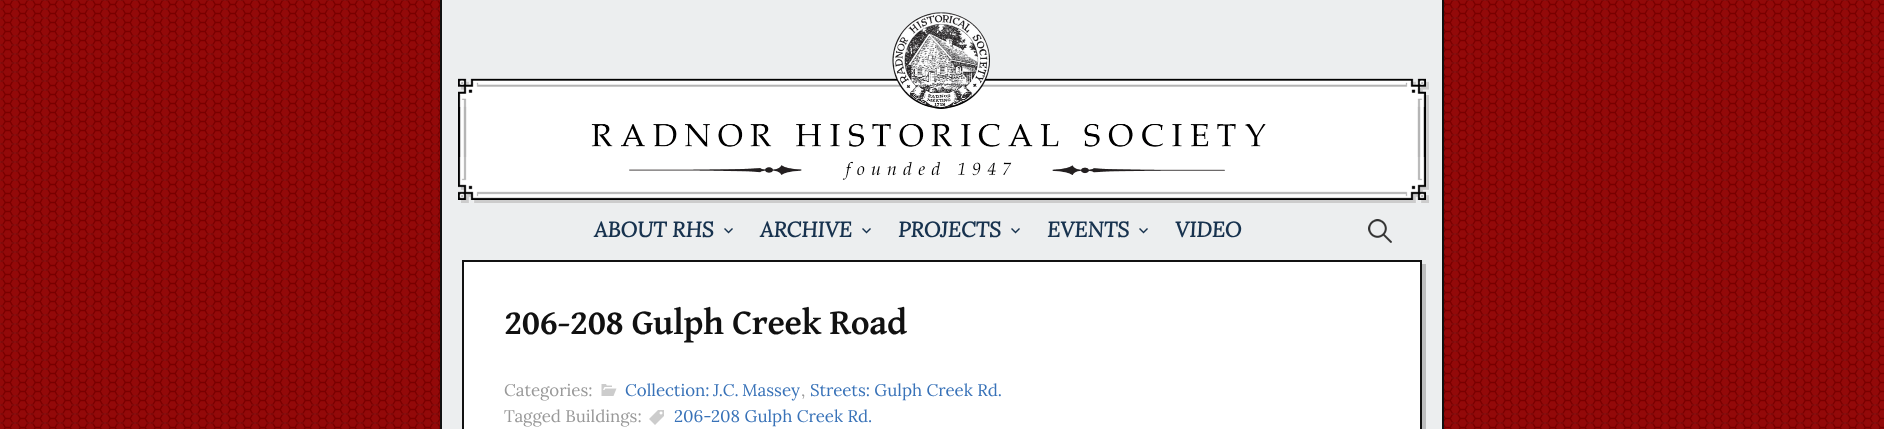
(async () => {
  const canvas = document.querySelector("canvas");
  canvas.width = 1884;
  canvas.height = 429;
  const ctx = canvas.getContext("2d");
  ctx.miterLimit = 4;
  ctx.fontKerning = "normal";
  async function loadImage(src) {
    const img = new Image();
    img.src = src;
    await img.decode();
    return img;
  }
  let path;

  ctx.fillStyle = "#ffffff";
  ctx.fillRect(0, 0, 1884, 429);
  ctx.drawImage(await loadImage("img/1.png"), 0, 0, 1884, 429);
  ctx.fillStyle = "#eceeef";
  ctx.beginPath();
  ctx.rect(441, -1, 1002, 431);
  ctx.fill();
  ctx.strokeStyle = "#111111";
  ctx.lineWidth = 2;
  ctx.stroke();
  ctx.drawImage(await loadImage("img/2.png"), 458, 12, 971, 191);
  ctx.drawImage(await loadImage("img/3.png"), 724, 228, 9, 6);
  ctx.drawImage(await loadImage("img/3.png"), 862, 228, 9, 6);
  ctx.drawImage(await loadImage("img/3.png"), 1011, 228, 9, 6);
  ctx.drawImage(await loadImage("img/3.png"), 1139, 228, 9, 6);
  ctx.drawImage(await loadImage("img/4.png"), 1368, 219, 24, 24);
  ctx.fillStyle = "#bdbebf";
  path = new Path2D("M466 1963V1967H1426V264H1422V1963Z");
  ctx.fill(path);
  ctx.fillStyle = "#ffffff";
  ctx.beginPath();
  ctx.rect(463, 261, 958, 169);
  ctx.fill();
  ctx.stroke();
  ctx.drawImage(await loadImage("img/5.png"), 601, 384, 16, 12);
  ctx.drawImage(await loadImage("img/6.png"), 649, 410, 15, 15);
  ctx.font = "italic bold 21.25px Lora";
  ctx.fillStyle = "#17324e";
  for (const [text, x, y] of [
    ["ABOUT RHS", 594, 237],
    ["ARCHIVE", 760, 237],
    ["PROJECTS", 898, 237],
    ["EVENTS", 1047, 237],
    ["VIDEO", 1175, 237],
  ]) {
    ctx.fillText(text, x, y);
  }
  ctx.letterSpacing = "-0.4px";
  ctx.font = "bold 36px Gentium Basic";
  ctx.fillStyle = "#111111";
  ctx.fillText("206-208 Gulph Creek Road", 504, 334);
  ctx.letterSpacing = "0px";
  ctx.font = "16.9px Lora";
  ctx.fillStyle = "#999999";
  ctx.fillText("Categories:", 504, 396);
  ctx.wordSpacing = "-1px";
  ctx.fillStyle = "#3872b8";
  ctx.fillText("Collection: J.C. Massey", 625, 396);
  ctx.wordSpacing = "0px";
  ctx.fillText("Streets: Gulph Creek Rd.", 810, 396);
  ctx.fillStyle = "#999999";
  ctx.fillText(",", 801, 396);
  ctx.fillText("Tagged Buildings:", 504, 422);
  ctx.fillStyle = "#3872b8";
  ctx.fillText("206-208 Gulph Creek Rd.", 674, 422);
})();
